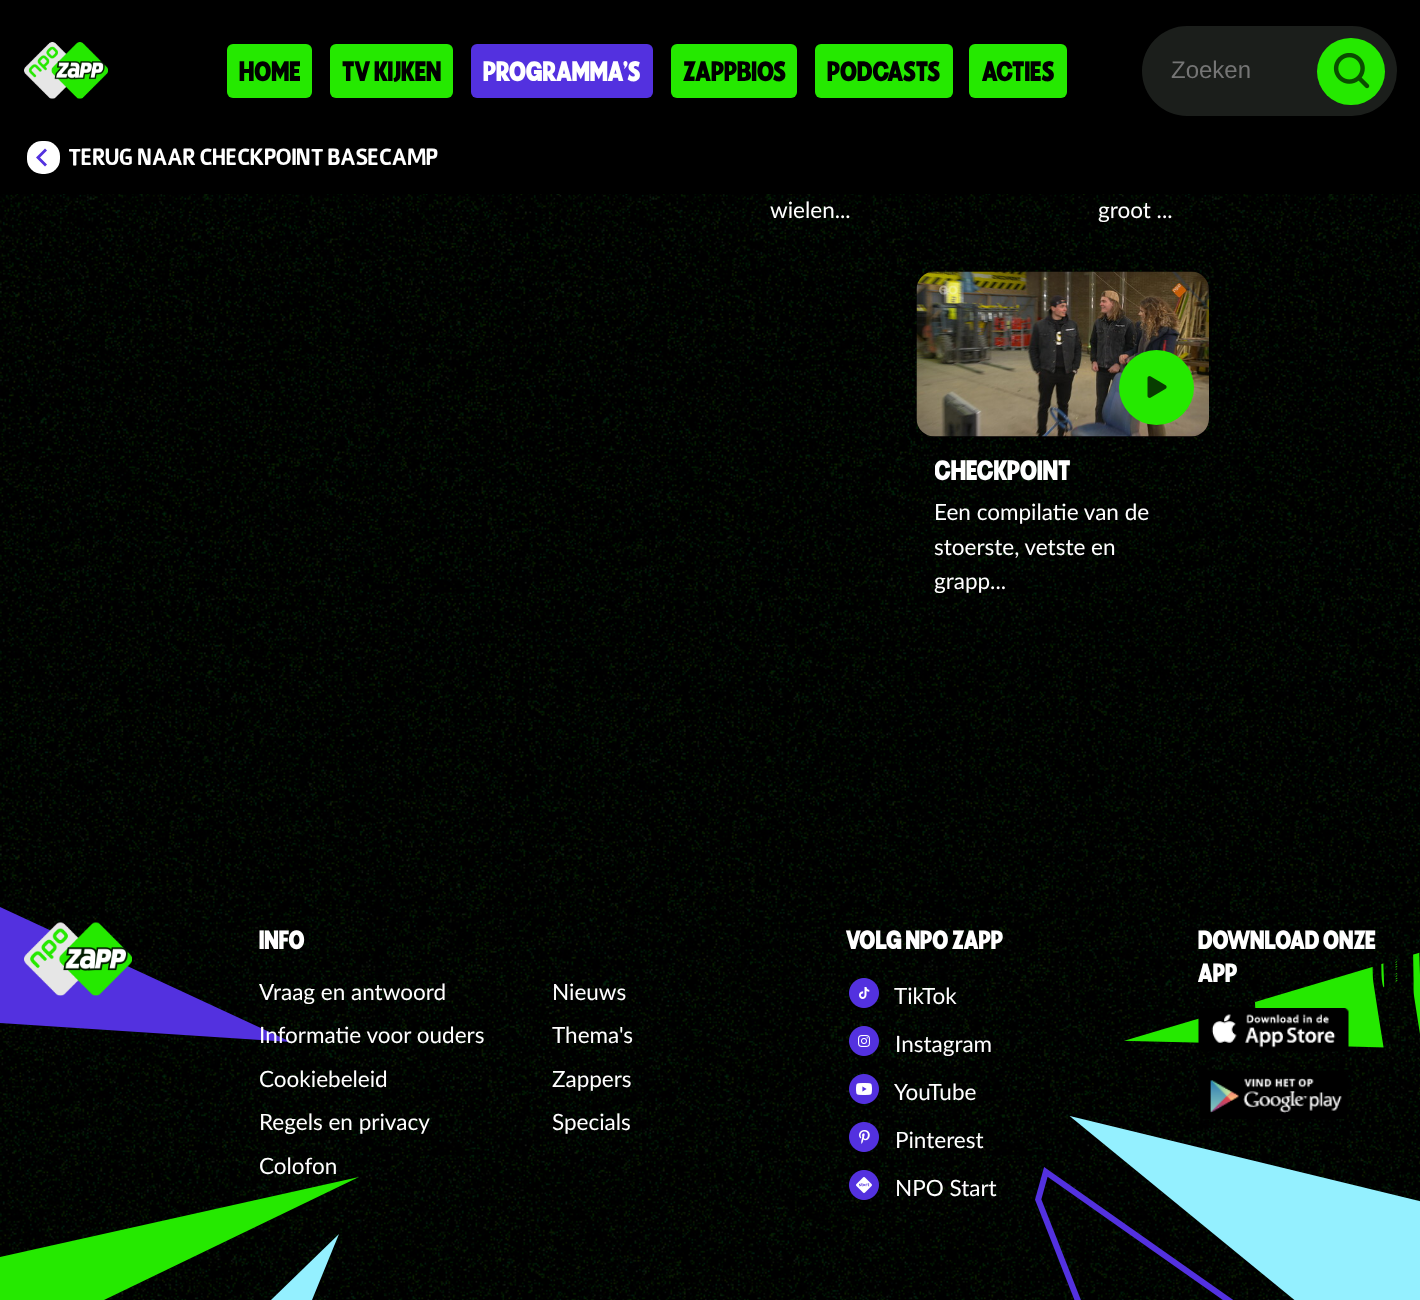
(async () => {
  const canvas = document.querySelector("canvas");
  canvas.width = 1420;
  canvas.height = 1300;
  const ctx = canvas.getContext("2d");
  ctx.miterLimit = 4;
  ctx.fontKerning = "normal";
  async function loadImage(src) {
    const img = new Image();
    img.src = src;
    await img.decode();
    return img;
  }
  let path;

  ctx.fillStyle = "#ffffff";
  ctx.fillRect(0, 0, 1420, 1300);
  ctx.drawImage(await loadImage("img/1.png"), 0, 194, 1420, 1106);
  ctx.fillStyle = "#000000";
  ctx.fillRect(0, 0, 1420, 194);
  ctx.drawImage(await loadImage("img/2.png"), 24, 42, 84, 57);
  ctx.fillStyle = "#25e900";
  ctx.beginPath();
  ctx.roundRect(227, 44, 85, 54, 6);
  ctx.fill();
  ctx.beginPath();
  ctx.roundRect(330, 44, 123, 54, 6);
  ctx.fill();
  ctx.fillStyle = "#5331df";
  ctx.beginPath();
  ctx.roundRect(471, 44, 182, 54, 6);
  ctx.fill();
  ctx.fillStyle = "#25e900";
  ctx.beginPath();
  ctx.roundRect(671, 44, 126, 54, 6);
  ctx.fill();
  ctx.beginPath();
  ctx.roundRect(815, 44, 138, 54, 6);
  ctx.fill();
  ctx.beginPath();
  ctx.roundRect(969, 44, 98, 54, 6);
  ctx.fill();
  ctx.fillStyle = "#1b1e1b";
  ctx.beginPath();
  ctx.roundRect(1142, 26, 255, 90, 45);
  ctx.fill();
  ctx.fillStyle = "#25e900";
  ctx.beginPath();
  ctx.roundRect(1317, 38, 68, 67, 33.5);
  ctx.fill();
  ctx.drawImage(await loadImage("img/3.png"), 1333, 53, 37, 36);
  ctx.fillStyle = "#ffffff";
  ctx.beginPath();
  ctx.roundRect(27, 141, 33, 33, 15);
  ctx.fill();
  ctx.fillStyle = "#5331df";
  path = new Path2D("M47 150.5L45 148.5L36 157.5L45 166.5L47 164.5L40 157.5Z");
  ctx.fill(path);
  ctx.fillStyle = "#000000";
  ctx.beginPath();
  ctx.roundRect(917, 272, 292, 165, 18);
  ctx.fill();
  ctx.drawImage(await loadImage("img/4.png"), 916, 271, 293, 166);
  ctx.fillStyle = "#25e900";
  ctx.beginPath();
  ctx.arc(1156.5, 387.5, 37.5, 0, Math.PI * 2);
  ctx.fill();
  ctx.drawImage(await loadImage("img/5.png"), 1147, 376, 20, 22);
  path = new Path2D("M359 1177L0 1257V1300H104Z");
  ctx.fill(path);
  ctx.fillStyle = "#5331df";
  path = new Path2D("M291 1042L0 907V1023Z");
  ctx.fill(path);
  ctx.fillStyle = "#94f0ff";
  path = new Path2D("M271 1300L339 1234L312 1300Z");
  ctx.fill(path);
  ctx.drawImage(await loadImage("img/6.png"), 24, 922, 108, 74);
  ctx.drawImage(await loadImage("img/7.png"), 849, 978, 30, 30);
  ctx.drawImage(await loadImage("img/8.png"), 849, 1026, 30, 30);
  ctx.drawImage(await loadImage("img/9.png"), 849, 1074, 30, 30);
  ctx.drawImage(await loadImage("img/10.png"), 849, 1122, 30, 30);
  ctx.drawImage(await loadImage("img/11.png"), 849, 1170, 30, 30);
  ctx.drawImage(await loadImage("img/14.png"), 1035, 952, 385, 348);
  ctx.drawImage(await loadImage("img/12.png"), 1198, 1008, 151, 44);
  ctx.drawImage(await loadImage("img/13.png"), 1199, 1070, 149, 49);
  ctx.font = "27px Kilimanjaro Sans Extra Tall";
  ctx.fillStyle = "#000000";
  ctx.fillText("HOME", 239, 81);
  ctx.fillText("TV KIJKEN", 342, 81);
  ctx.fillStyle = "#ffffff";
  ctx.fillText("PROGRAMMA'S", 483, 81);
  ctx.fillStyle = "#000000";
  for (const [text, x, y] of [
    ["ZAPPBIOS", 683, 81],
    ["PODCASTS", 827, 81],
    ["ACTIES", 982, 81],
  ]) {
    ctx.fillText(text, x, y);
  }
  ctx.font = "24px Liberation Sans";
  ctx.fillStyle = "#757575";
  ctx.fillText("Zoeken", 1171, 78);
  ctx.font = "22.5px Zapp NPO";
  ctx.fillStyle = "#ffffff";
  ctx.fillText("TERUG NAAR CHECKPOINT BASECAMP", 69, 165);
  ctx.font = "22.5px Lato";
  ctx.fillText("wielen...", 770, 218);
  ctx.fillText("groot ...", 1098, 218);
  ctx.save();
  ctx.beginPath();
  ctx.rect(935, 452, 256, 144);
  ctx.clip();
  ctx.font = "27px Kilimanjaro Sans Extra Tall";
  ctx.fillText("CHECKPOINT", 934, 480);
  ctx.restore();
  for (const [text, x, y] of [
    ["Een compilatie van de", 934, 520],
    ["stoerste, vetste en", 934, 555],
    ["grapp...", 934, 589],
  ]) {
    ctx.fillText(text, x, y);
  }
  ctx.font = "25.5px Kilimanjaro Sans Extra Tall";
  ctx.fillText("INFO", 259, 949);
  ctx.font = "22.5px Lato";
  for (const [text, x, y] of [
    ["Vraag en antwoord", 259, 1000],
    ["Informatie voor ouders", 259, 1043],
    ["Cookiebeleid", 259, 1087],
    ["Regels en privacy", 259, 1130],
    ["Colofon", 259, 1174],
    ["Nieuws", 552, 1000],
    ["Thema's", 552, 1043],
    ["Zappers", 552, 1087],
    ["Specials", 552, 1130],
  ]) {
    ctx.fillText(text, x, y);
  }
  ctx.font = "25.5px Kilimanjaro Sans Extra Tall";
  ctx.fillText("VOLG NPO ZAPP", 846, 949);
  ctx.font = "22.5px Lato";
  for (const [text, x, y] of [
    ["TikTok", 894, 1004],
    ["Instagram", 895, 1052],
    ["YouTube", 894, 1100],
    ["Pinterest", 895, 1148],
    ["NPO Start", 895, 1196],
  ]) {
    ctx.fillText(text, x, y);
  }
  ctx.font = "25.5px Kilimanjaro Sans Extra Tall";
  ctx.fillText("DOWNLOAD ONZE", 1198, 949);
  ctx.fillText("APP", 1198, 982);
})();
